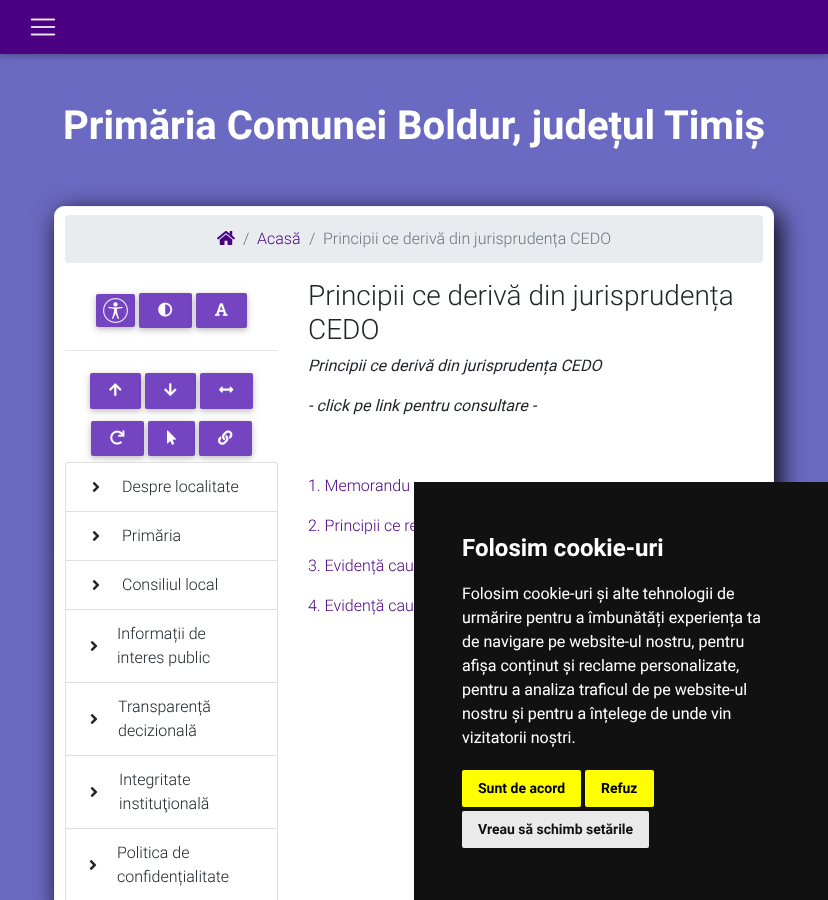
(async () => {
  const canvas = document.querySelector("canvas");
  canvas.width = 828;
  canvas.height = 900;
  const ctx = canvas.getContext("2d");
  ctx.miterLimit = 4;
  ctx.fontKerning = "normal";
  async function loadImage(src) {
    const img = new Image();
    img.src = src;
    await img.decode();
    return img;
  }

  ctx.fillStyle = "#6b6ac2";
  ctx.fillRect(0, 0, 828, 900);
  ctx.fillStyle = "rgba(0, 0, 0, 0.12)";
  ctx.filter = "blur(5px)";
  ctx.beginPath();
  ctx.rect(0, 2, 828, 54);
  ctx.fill();
  ctx.filter = "none";
  ctx.fillStyle = "rgba(0, 0, 0, 0.16)";
  ctx.filter = "blur(2.5px)";
  ctx.beginPath();
  ctx.rect(0, 2, 828, 54);
  ctx.fill();
  ctx.filter = "none";
  ctx.fillStyle = "#4b0082";
  ctx.fillRect(0, 0, 828, 54);
  ctx.drawImage(await loadImage("img/1.png"), 30, 18, 26, 18);
  ctx.fillStyle = "#000000";
  ctx.filter = "blur(13.5px)";
  ctx.beginPath();
  ctx.roundRect(59, 213, 720, 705, 10);
  ctx.fill();
  ctx.filter = "none";
  ctx.fillStyle = "#ffffff";
  ctx.beginPath();
  ctx.roundRect(54.5, 206.5, 719, 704, 9.5);
  ctx.fill();
  ctx.strokeStyle = "#f2f2f2";
  ctx.stroke();
  ctx.fillStyle = "#e9ecef";
  ctx.beginPath();
  ctx.roundRect(65, 215, 698, 48, 4);
  ctx.fill();
  ctx.drawImage(await loadImage("img/2.png"), 217, 231, 18, 14);
  ctx.fillStyle = "rgba(0, 0, 0, 0.12)";
  ctx.filter = "blur(5px)";
  ctx.beginPath();
  ctx.roundRect(96, 296, 39, 33, 2);
  ctx.fill();
  ctx.filter = "none";
  ctx.fillStyle = "rgba(0, 0, 0, 0.16)";
  ctx.filter = "blur(2.5px)";
  ctx.beginPath();
  ctx.roundRect(96, 296, 39, 33, 2);
  ctx.fill();
  ctx.filter = "none";
  ctx.fillStyle = "#7544c1";
  ctx.beginPath();
  ctx.roundRect(96, 294, 39, 33, 2);
  ctx.fill();
  ctx.drawImage(await loadImage("img/3.png"), 103, 298, 25, 25);
  ctx.fillStyle = "rgba(0, 0, 0, 0.12)";
  ctx.filter = "blur(5px)";
  ctx.beginPath();
  ctx.roundRect(139, 295, 53, 35, 2);
  ctx.fill();
  ctx.filter = "none";
  ctx.fillStyle = "rgba(0, 0, 0, 0.16)";
  ctx.filter = "blur(2.5px)";
  ctx.beginPath();
  ctx.roundRect(139, 295, 53, 35, 2);
  ctx.fill();
  ctx.filter = "none";
  ctx.fillStyle = "#7544c1";
  ctx.beginPath();
  ctx.roundRect(139, 293, 53, 35, 2);
  ctx.fill();
  ctx.drawImage(await loadImage("img/4.png"), 158, 302, 15, 15);
  ctx.fillStyle = "rgba(0, 0, 0, 0.12)";
  ctx.filter = "blur(5px)";
  ctx.beginPath();
  ctx.roundRect(196, 295, 51, 35, 2);
  ctx.fill();
  ctx.filter = "none";
  ctx.fillStyle = "rgba(0, 0, 0, 0.16)";
  ctx.filter = "blur(2.5px)";
  ctx.beginPath();
  ctx.roundRect(196, 295, 51, 35, 2);
  ctx.fill();
  ctx.filter = "none";
  ctx.fillStyle = "#7544c1";
  ctx.beginPath();
  ctx.roundRect(196, 293, 51, 35, 2);
  ctx.fill();
  ctx.drawImage(await loadImage("img/5.png"), 215, 303, 13, 13);
  ctx.fillStyle = "#e6e6e6";
  ctx.fillRect(65, 350, 213, 1);
  ctx.fillStyle = "rgba(0, 0, 0, 0.12)";
  ctx.filter = "blur(5px)";
  ctx.beginPath();
  ctx.roundRect(90, 375, 51, 36, 2);
  ctx.fill();
  ctx.filter = "none";
  ctx.fillStyle = "rgba(0, 0, 0, 0.16)";
  ctx.filter = "blur(2.5px)";
  ctx.beginPath();
  ctx.roundRect(90, 375, 51, 36, 2);
  ctx.fill();
  ctx.filter = "none";
  ctx.fillStyle = "#7544c1";
  ctx.beginPath();
  ctx.roundRect(90, 373, 51, 36, 2);
  ctx.fill();
  ctx.drawImage(await loadImage("img/6.png"), 109, 383, 13, 13);
  ctx.fillStyle = "rgba(0, 0, 0, 0.12)";
  ctx.filter = "blur(5px)";
  ctx.beginPath();
  ctx.roundRect(145, 375, 51, 36, 2);
  ctx.fill();
  ctx.filter = "none";
  ctx.fillStyle = "rgba(0, 0, 0, 0.16)";
  ctx.filter = "blur(2.5px)";
  ctx.beginPath();
  ctx.roundRect(145, 375, 51, 36, 2);
  ctx.fill();
  ctx.filter = "none";
  ctx.fillStyle = "#7544c1";
  ctx.beginPath();
  ctx.roundRect(145, 373, 51, 36, 2);
  ctx.fill();
  ctx.drawImage(await loadImage("img/7.png"), 164, 383, 13, 13);
  ctx.fillStyle = "rgba(0, 0, 0, 0.12)";
  ctx.filter = "blur(5px)";
  ctx.beginPath();
  ctx.roundRect(200, 375, 53, 36, 2);
  ctx.fill();
  ctx.filter = "none";
  ctx.fillStyle = "rgba(0, 0, 0, 0.16)";
  ctx.filter = "blur(2.5px)";
  ctx.beginPath();
  ctx.roundRect(200, 375, 53, 36, 2);
  ctx.fill();
  ctx.filter = "none";
  ctx.fillStyle = "#7544c1";
  ctx.beginPath();
  ctx.roundRect(200, 373, 53, 36, 2);
  ctx.fill();
  ctx.drawImage(await loadImage("img/8.png"), 219, 386, 15, 7);
  ctx.fillStyle = "rgba(0, 0, 0, 0.12)";
  ctx.filter = "blur(5px)";
  ctx.beginPath();
  ctx.roundRect(91, 423, 53, 35, 2);
  ctx.fill();
  ctx.filter = "none";
  ctx.fillStyle = "rgba(0, 0, 0, 0.16)";
  ctx.filter = "blur(2.5px)";
  ctx.beginPath();
  ctx.roundRect(91, 423, 53, 35, 2);
  ctx.fill();
  ctx.filter = "none";
  ctx.fillStyle = "#7544c1";
  ctx.beginPath();
  ctx.roundRect(91, 421, 53, 35, 2);
  ctx.fill();
  ctx.drawImage(await loadImage("img/9.png"), 110, 430, 15, 15);
  ctx.fillStyle = "rgba(0, 0, 0, 0.12)";
  ctx.filter = "blur(5px)";
  ctx.beginPath();
  ctx.roundRect(148, 423, 47, 35, 2);
  ctx.fill();
  ctx.filter = "none";
  ctx.fillStyle = "rgba(0, 0, 0, 0.16)";
  ctx.filter = "blur(2.5px)";
  ctx.beginPath();
  ctx.roundRect(148, 423, 47, 35, 2);
  ctx.fill();
  ctx.filter = "none";
  ctx.fillStyle = "#7544c1";
  ctx.beginPath();
  ctx.roundRect(148, 421, 47, 35, 2);
  ctx.fill();
  ctx.drawImage(await loadImage("img/10.png"), 167, 430, 9, 15);
  ctx.fillStyle = "rgba(0, 0, 0, 0.12)";
  ctx.filter = "blur(5px)";
  ctx.beginPath();
  ctx.roundRect(199, 423, 53, 35, 2);
  ctx.fill();
  ctx.filter = "none";
  ctx.fillStyle = "rgba(0, 0, 0, 0.16)";
  ctx.filter = "blur(2.5px)";
  ctx.beginPath();
  ctx.roundRect(199, 423, 53, 35, 2);
  ctx.fill();
  ctx.filter = "none";
  ctx.fillStyle = "#7544c1";
  ctx.beginPath();
  ctx.roundRect(199, 421, 53, 35, 2);
  ctx.fill();
  ctx.drawImage(await loadImage("img/11.png"), 218, 430, 15, 15);
  ctx.fillStyle = "#ffffff";
  ctx.beginPath();
  ctx.roundRect(65.5, 462.5, 212, 49, [1.5, 1.5, 0, 0]);
  ctx.fill();
  ctx.strokeStyle = "#dfdfdf";
  ctx.stroke();
  ctx.drawImage(await loadImage("img/12.png"), 92, 482, 8, 10);
  ctx.strokeRect(65.5, 511.5, 212, 49);
  ctx.drawImage(await loadImage("img/12.png"), 92, 531, 8, 10);
  ctx.strokeRect(65.5, 560.5, 212, 49);
  ctx.drawImage(await loadImage("img/12.png"), 92, 580, 8, 10);
  ctx.strokeRect(65.5, 609.5, 212, 73);
  ctx.drawImage(await loadImage("img/12.png"), 90, 641, 8, 10);
  ctx.strokeRect(65.5, 682.5, 212, 73);
  ctx.drawImage(await loadImage("img/12.png"), 90, 714, 8, 10);
  ctx.strokeRect(65.5, 755.5, 212, 73);
  ctx.drawImage(await loadImage("img/12.png"), 90, 787, 8, 10);
  ctx.strokeRect(65.5, 828.5, 212, 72);
  ctx.drawImage(await loadImage("img/12.png"), 89, 860, 8, 10);
  ctx.font = "bold 40px Roboto";
  ctx.fillText("Primăria Comunei Boldur, județul Timiș", 63, 139);
  ctx.font = "300 16px Roboto";
  ctx.fillStyle = "#6c757d";
  ctx.fillText("/", 243, 244);
  ctx.fillStyle = "#4b0082";
  ctx.fillText("Acasă", 257, 244);
  ctx.fillStyle = "#6c757d";
  ctx.fillText("/", 309, 244);
  ctx.fillText("Principii ce derivă din jurisprudența CEDO", 323, 244);
  ctx.fillStyle = "#212529";
  for (const [text, x, y] of [
    ["Despre localitate", 122, 492],
    ["Primăria", 122, 541],
    ["Consiliul local", 122, 590],
    ["Informații de", 117, 639],
    ["interes public", 117, 663],
    ["Transparență", 118, 712],
    ["decizională", 118, 736],
    ["Integritate", 119, 785],
    ["instituţională", 119, 809],
    ["Politica de", 117, 858],
    ["confidențialitate", 117, 882],
  ]) {
    ctx.fillText(text, x, y);
  }
  ctx.font = "300 28px Roboto";
  ctx.fillText("Principii ce derivă din jurisprudența", 308, 305);
  ctx.fillText("CEDO", 308, 339);
  ctx.font = "italic 16px Roboto";
  ctx.fillText("Principii ce derivă din jurisprudența CEDO", 308, 371);
  ctx.fillText("- click pe link pentru consultare -", 308, 411);
  ctx.font = "300 16px Roboto";
  ctx.fillStyle = "#4b0082";
  for (const [text, x, y] of [
    ["1. Memorandu", 308, 491],
    ["2. Principii ce re", 308, 531],
    ["3. Evidență cau", 308, 571],
    ["4. Evidență cau", 308, 611],
  ]) {
    ctx.fillText(text, x, y);
  }
  ctx.fillStyle = "#111111";
  ctx.fillRect(414, 482, 414, 418);
  ctx.font = "bold 24px Roboto";
  ctx.fillStyle = "#ffffff";
  ctx.fillText("Folosim cookie-uri", 462, 556);
  ctx.font = "16px Roboto";
  for (const [text, x, y] of [
    ["Folosim cookie-uri și alte tehnologii de", 462, 599],
    ["urmărire pentru a îmbunătăți experiența ta", 462, 623],
    ["de navigare pe website-ul nostru, pentru", 462, 647],
    ["afișa conținut și reclame personalizate,", 462, 671],
    ["pentru a analiza traficul de pe website-ul", 462, 695],
    ["nostru și pentru a înțelege de unde vin", 462, 719],
    ["vizitatorii noștri.", 462, 743],
  ]) {
    ctx.fillText(text, x, y);
  }
  ctx.fillStyle = "#ffff00";
  ctx.beginPath();
  ctx.roundRect(462, 770, 119, 37, 2);
  ctx.fill();
  ctx.font = "bold 14px Roboto";
  ctx.fillStyle = "#000000";
  ctx.fillText("Sunt de acord", 478, 793);
  ctx.fillStyle = "#ffff00";
  ctx.beginPath();
  ctx.roundRect(585, 770, 69, 37, 2);
  ctx.fill();
  ctx.fillStyle = "#000000";
  ctx.fillText("Refuz", 601, 793);
  ctx.fillStyle = "#eaeaea";
  ctx.beginPath();
  ctx.roundRect(462, 811, 187, 37, 2);
  ctx.fill();
  ctx.fillStyle = "#111111";
  ctx.fillText("Vreau să schimb setările", 478, 834);
})();
